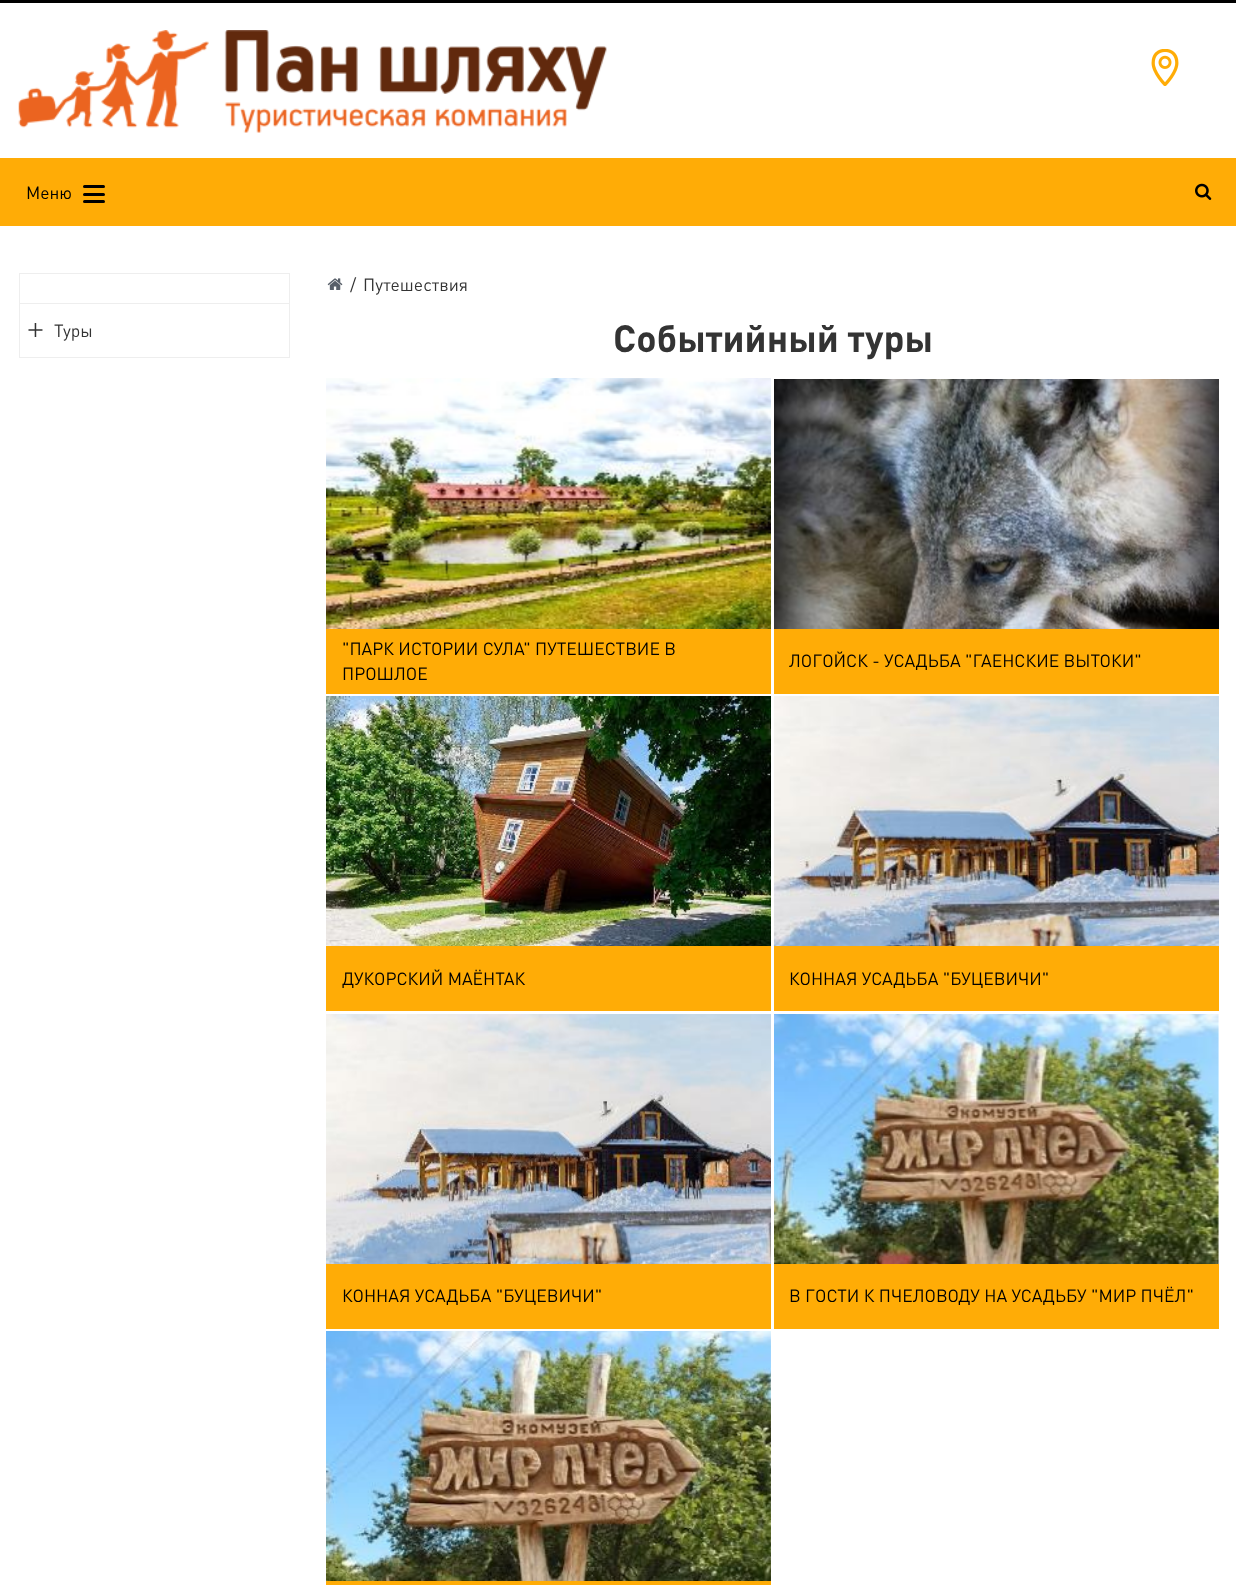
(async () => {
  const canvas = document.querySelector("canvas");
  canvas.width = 1236;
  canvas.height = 1585;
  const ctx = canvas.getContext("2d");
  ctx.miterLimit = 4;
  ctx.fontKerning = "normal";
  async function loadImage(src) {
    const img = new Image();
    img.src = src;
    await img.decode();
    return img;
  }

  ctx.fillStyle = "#ffffff";
  ctx.fillRect(0, 0, 1236, 1585);
  ctx.fillStyle = "#000000";
  ctx.fillRect(0, 0, 1236, 3);
  ctx.drawImage(await loadImage("img/1.png"), 18, 30, 589, 103);
  ctx.drawImage(await loadImage("img/2.png"), 1151, 49, 28, 37);
  ctx.fillStyle = "#ffac06";
  ctx.fillRect(0, 158, 1236, 68);
  ctx.fillStyle = "#000000";
  ctx.beginPath();
  ctx.roundRect(83, 185, 22, 3, 1.5);
  ctx.fill();
  ctx.beginPath();
  ctx.roundRect(83, 193, 22, 3, 1.5);
  ctx.fill();
  ctx.beginPath();
  ctx.roundRect(83, 200, 22, 3, 1.5);
  ctx.fill();
  ctx.drawImage(await loadImage("img/3.png"), 1195, 183, 17, 17);
  ctx.strokeStyle = "#eeeeee";
  ctx.strokeRect(19.5, 273.5, 270, 84);
  ctx.fillStyle = "#eeeeee";
  ctx.fillRect(20, 303, 269, 1);
  ctx.drawImage(await loadImage("img/4.png"), 327, 278, 16, 12);
  ctx.drawImage(await loadImage("img/5.png"), 326, 378, 445, 251);
  ctx.fillStyle = "#ffac06";
  ctx.fillRect(326, 629, 445, 65);
  ctx.drawImage(await loadImage("img/6.png"), 774, 379, 445, 250);
  ctx.fillRect(774, 629, 445, 65);
  ctx.drawImage(await loadImage("img/7.png"), 326, 696, 445, 250);
  ctx.fillRect(326, 946, 445, 65);
  ctx.drawImage(await loadImage("img/8.png"), 774, 696, 445, 250);
  ctx.fillRect(774, 946, 445, 65);
  ctx.drawImage(await loadImage("img/9.png"), 326, 1014, 445, 250);
  ctx.fillRect(326, 1264, 445, 65);
  ctx.drawImage(await loadImage("img/10.png"), 774, 1014, 445, 250);
  ctx.fillRect(774, 1264, 445, 65);
  ctx.drawImage(await loadImage("img/11.png"), 326, 1331, 445, 250);
  ctx.fillRect(326, 1581, 445, 4);
  ctx.font = "17.5px DIN";
  ctx.fillStyle = "#000000";
  ctx.fillText("Меню", 26, 199);
  ctx.font = "30px Liberation Serif";
  ctx.fillStyle = "#333333";
  ctx.fillText("+", 27, 340);
  ctx.font = "17.5px DIN";
  for (const [text, x, y] of [
    ["Туры", 54, 337],
    ["/", 350, 291],
    ["Путешествия", 363, 291],
  ]) {
    ctx.fillText(text, x, y);
  }
  ctx.font = "bold 37.5px DIN";
  ctx.fillText("Событийный туры", 613, 352);
  ctx.font = "17.5px DIN";
  ctx.fillStyle = "#000000";
  for (const [text, x, y] of [
    ["\"ПАРК ИСТОРИИ СУЛА\" ПУТЕШЕСТВИЕ В", 342, 655],
    ["ПРОШЛОЕ", 342, 680],
    ["ЛОГОЙСК - УСАДЬБА \"ГАЕНСКИЕ ВЫТОКИ\"", 789, 667],
    ["ДУКОРСКИЙ МАЁНТАК", 342, 985],
    ["КОННАЯ УСАДЬБА \"БУЦЕВИЧИ\"", 789, 985],
    ["КОННАЯ УСАДЬБА \"БУЦЕВИЧИ\"", 342, 1302],
    ["В ГОСТИ К ПЧЕЛОВОДУ НА УСАДЬБУ \"МИР ПЧЁЛ\"", 789, 1302],
  ]) {
    ctx.fillText(text, x, y);
  }
})();
